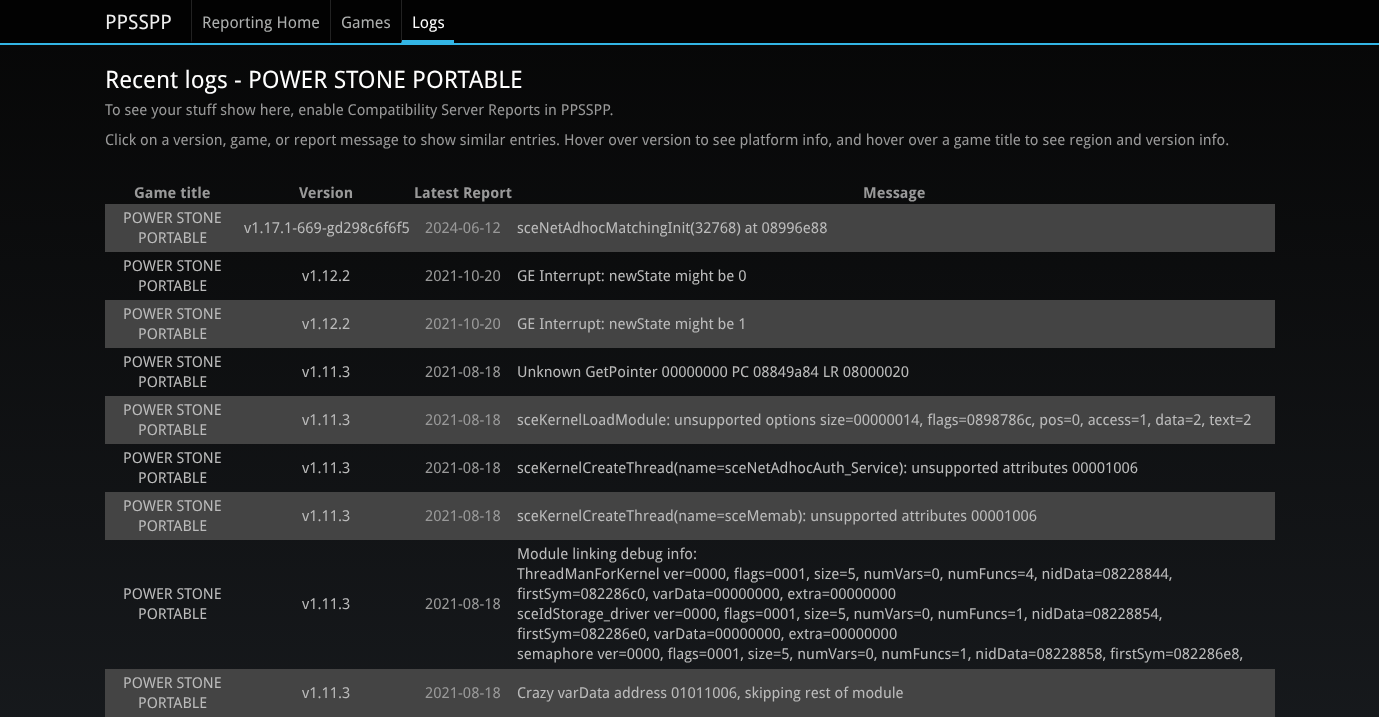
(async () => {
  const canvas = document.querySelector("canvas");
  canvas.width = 1379;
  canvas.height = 717;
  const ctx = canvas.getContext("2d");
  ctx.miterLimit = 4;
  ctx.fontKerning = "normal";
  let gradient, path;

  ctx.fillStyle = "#ffffff";
  ctx.fillRect(0, 0, 1379, 717);
  gradient = ctx.createLinearGradient(689, 0, 690, 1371);
  gradient.addColorStop(0, "#060606");
  gradient.addColorStop(1, "#252a30");
  ctx.fillStyle = gradient;
  ctx.fillRect(0, 45, 1379, 672);
  ctx.fillStyle = "#020202";
  ctx.fillRect(0, 0, 1379, 43);
  ctx.fillStyle = "#33b5e5";
  ctx.fillRect(0, 43, 1379, 2);
  ctx.fillStyle = "#222222";
  path = new Path2D("M191 43V0H192V40Z");
  ctx.fill(path);
  path = new Path2D("M330 43V0H331V40Z");
  ctx.fill(path);
  ctx.fillStyle = "#33b5e5";
  path = new Path2D("M454 43H401L402 40H454Z");
  ctx.fill(path);
  ctx.fillStyle = "#222222";
  path = new Path2D("M401 43V0H402V40Z");
  ctx.fill(path);
  for (const [x, y, w, h, color] of [
    [105, 204, 1170, 48, "#444444"],
    [105, 300, 1170, 48, "#444444"],
    [105, 396, 1170, 48, "#444444"],
    [105, 492, 1170, 48, "#444444"],
    [105, 669, 1170, 48, "#444444"],
  ]) {
    ctx.fillStyle = color;
    ctx.fillRect(x, y, w, h);
  }
  ctx.font = "20px Droid Sans";
  ctx.fillStyle = "#eeeeee";
  ctx.fillText("PPSSPP", 105, 29);
  ctx.font = "16px Droid Sans";
  ctx.fillStyle = "#adafae";
  ctx.fillText("Reporting Home", 202, 28);
  ctx.fillText("Games", 341, 28);
  ctx.fillStyle = "#ffffff";
  ctx.fillText("Logs", 412, 28);
  ctx.font = "24px Droid Sans";
  ctx.fillText("Recent logs - POWER STONE PORTABLE", 105, 88);
  ctx.font = "15px Droid Sans";
  ctx.fillStyle = "#999999";
  ctx.fillText("To see your stuff show here, enable Compatibility Server Reports in PPSSPP.", 105, 115);
  ctx.fillText("Click on a version, game, or report message to show similar entries. Hover over version to see platform info, and hover over a game title to see region and version info.", 105, 145);
  ctx.font = "bold 15px Droid Sans";
  for (const [text, x, y] of [
    ["Game title", 134, 198],
    ["Version", 299, 198],
    ["Latest Report", 414, 198],
    ["Message", 863, 198],
  ]) {
    ctx.fillText(text, x, y);
  }
  ctx.font = "15px Droid Sans";
  ctx.fillStyle = "#bbbbbb";
  for (const [text, x, y] of [
    ["POWER STONE", 123, 223],
    ["PORTABLE", 138, 243],
    ["v1.17.1-669-gd298c6f6f5", 244, 233],
  ]) {
    ctx.fillText(text, x, y);
  }
  ctx.fillStyle = "#999999";
  ctx.fillText("2024-06-12", 425, 233);
  ctx.fillStyle = "#bbbbbb";
  for (const [text, x, y] of [
    ["sceNetAdhocMatchingInit(32768) at 08996e88", 517, 233],
    ["POWER STONE", 123, 271],
    ["PORTABLE", 138, 291],
    ["v1.12.2", 302, 281],
  ]) {
    ctx.fillText(text, x, y);
  }
  ctx.fillStyle = "#999999";
  ctx.fillText("2021-10-20", 425, 281);
  ctx.fillStyle = "#bbbbbb";
  for (const [text, x, y] of [
    ["GE Interrupt: newState might be 0", 517, 281],
    ["POWER STONE", 123, 319],
    ["PORTABLE", 138, 339],
    ["v1.12.2", 302, 329],
  ]) {
    ctx.fillText(text, x, y);
  }
  ctx.fillStyle = "#999999";
  ctx.fillText("2021-10-20", 425, 329);
  ctx.fillStyle = "#bbbbbb";
  for (const [text, x, y] of [
    ["GE Interrupt: newState might be 1", 517, 329],
    ["POWER STONE", 123, 367],
    ["PORTABLE", 138, 387],
    ["v1.11.3", 302, 377],
  ]) {
    ctx.fillText(text, x, y);
  }
  ctx.fillStyle = "#999999";
  ctx.fillText("2021-08-18", 425, 377);
  ctx.fillStyle = "#bbbbbb";
  for (const [text, x, y] of [
    ["Unknown GetPointer 00000000 PC 08849a84 LR 08000020", 517, 377],
    ["POWER STONE", 123, 415],
    ["PORTABLE", 138, 435],
    ["v1.11.3", 302, 425],
  ]) {
    ctx.fillText(text, x, y);
  }
  ctx.fillStyle = "#999999";
  ctx.fillText("2021-08-18", 425, 425);
  ctx.fillStyle = "#bbbbbb";
  for (const [text, x, y] of [
    ["sceKernelLoadModule: unsupported options size=00000014, flags=0898786c, pos=0, access=1, data=2, text=2", 517, 425],
    ["POWER STONE", 123, 463],
    ["PORTABLE", 138, 483],
    ["v1.11.3", 302, 473],
  ]) {
    ctx.fillText(text, x, y);
  }
  ctx.fillStyle = "#999999";
  ctx.fillText("2021-08-18", 425, 473);
  ctx.fillStyle = "#bbbbbb";
  for (const [text, x, y] of [
    ["sceKernelCreateThread(name=sceNetAdhocAuth_Service): unsupported attributes 00001006", 517, 473],
    ["POWER STONE", 123, 511],
    ["PORTABLE", 138, 531],
    ["v1.11.3", 302, 521],
  ]) {
    ctx.fillText(text, x, y);
  }
  ctx.fillStyle = "#999999";
  ctx.fillText("2021-08-18", 425, 521);
  ctx.fillStyle = "#bbbbbb";
  for (const [text, x, y] of [
    ["sceKernelCreateThread(name=sceMemab): unsupported attributes 00001006", 517, 521],
    ["POWER STONE", 123, 599],
    ["PORTABLE", 138, 619],
    ["v1.11.3", 302, 609],
  ]) {
    ctx.fillText(text, x, y);
  }
  ctx.fillStyle = "#999999";
  ctx.fillText("2021-08-18", 425, 609);
  ctx.fillStyle = "#bbbbbb";
  for (const [text, x, y] of [
    ["Module linking debug info:", 517, 559],
    ["ThreadManForKernel ver=0000, flags=0001, size=5, numVars=0, numFuncs=4, nidData=08228844,", 517, 579],
    ["firstSym=082286c0, varData=00000000, extra=00000000", 517, 599],
    ["sceIdStorage_driver ver=0000, flags=0001, size=5, numVars=0, numFuncs=1, nidData=08228854,", 517, 619],
    ["firstSym=082286e0, varData=00000000, extra=00000000", 517, 639],
    ["semaphore ver=0000, flags=0001, size=5, numVars=0, numFuncs=1, nidData=08228858, firstSym=082286e8,", 517, 659],
    ["POWER STONE", 123, 688],
    ["PORTABLE", 138, 708],
    ["v1.11.3", 302, 698],
  ]) {
    ctx.fillText(text, x, y);
  }
  ctx.fillStyle = "#999999";
  ctx.fillText("2021-08-18", 425, 698);
  ctx.fillStyle = "#bbbbbb";
  ctx.fillText("Crazy varData address 01011006, skipping rest of module", 517, 698);
})();
